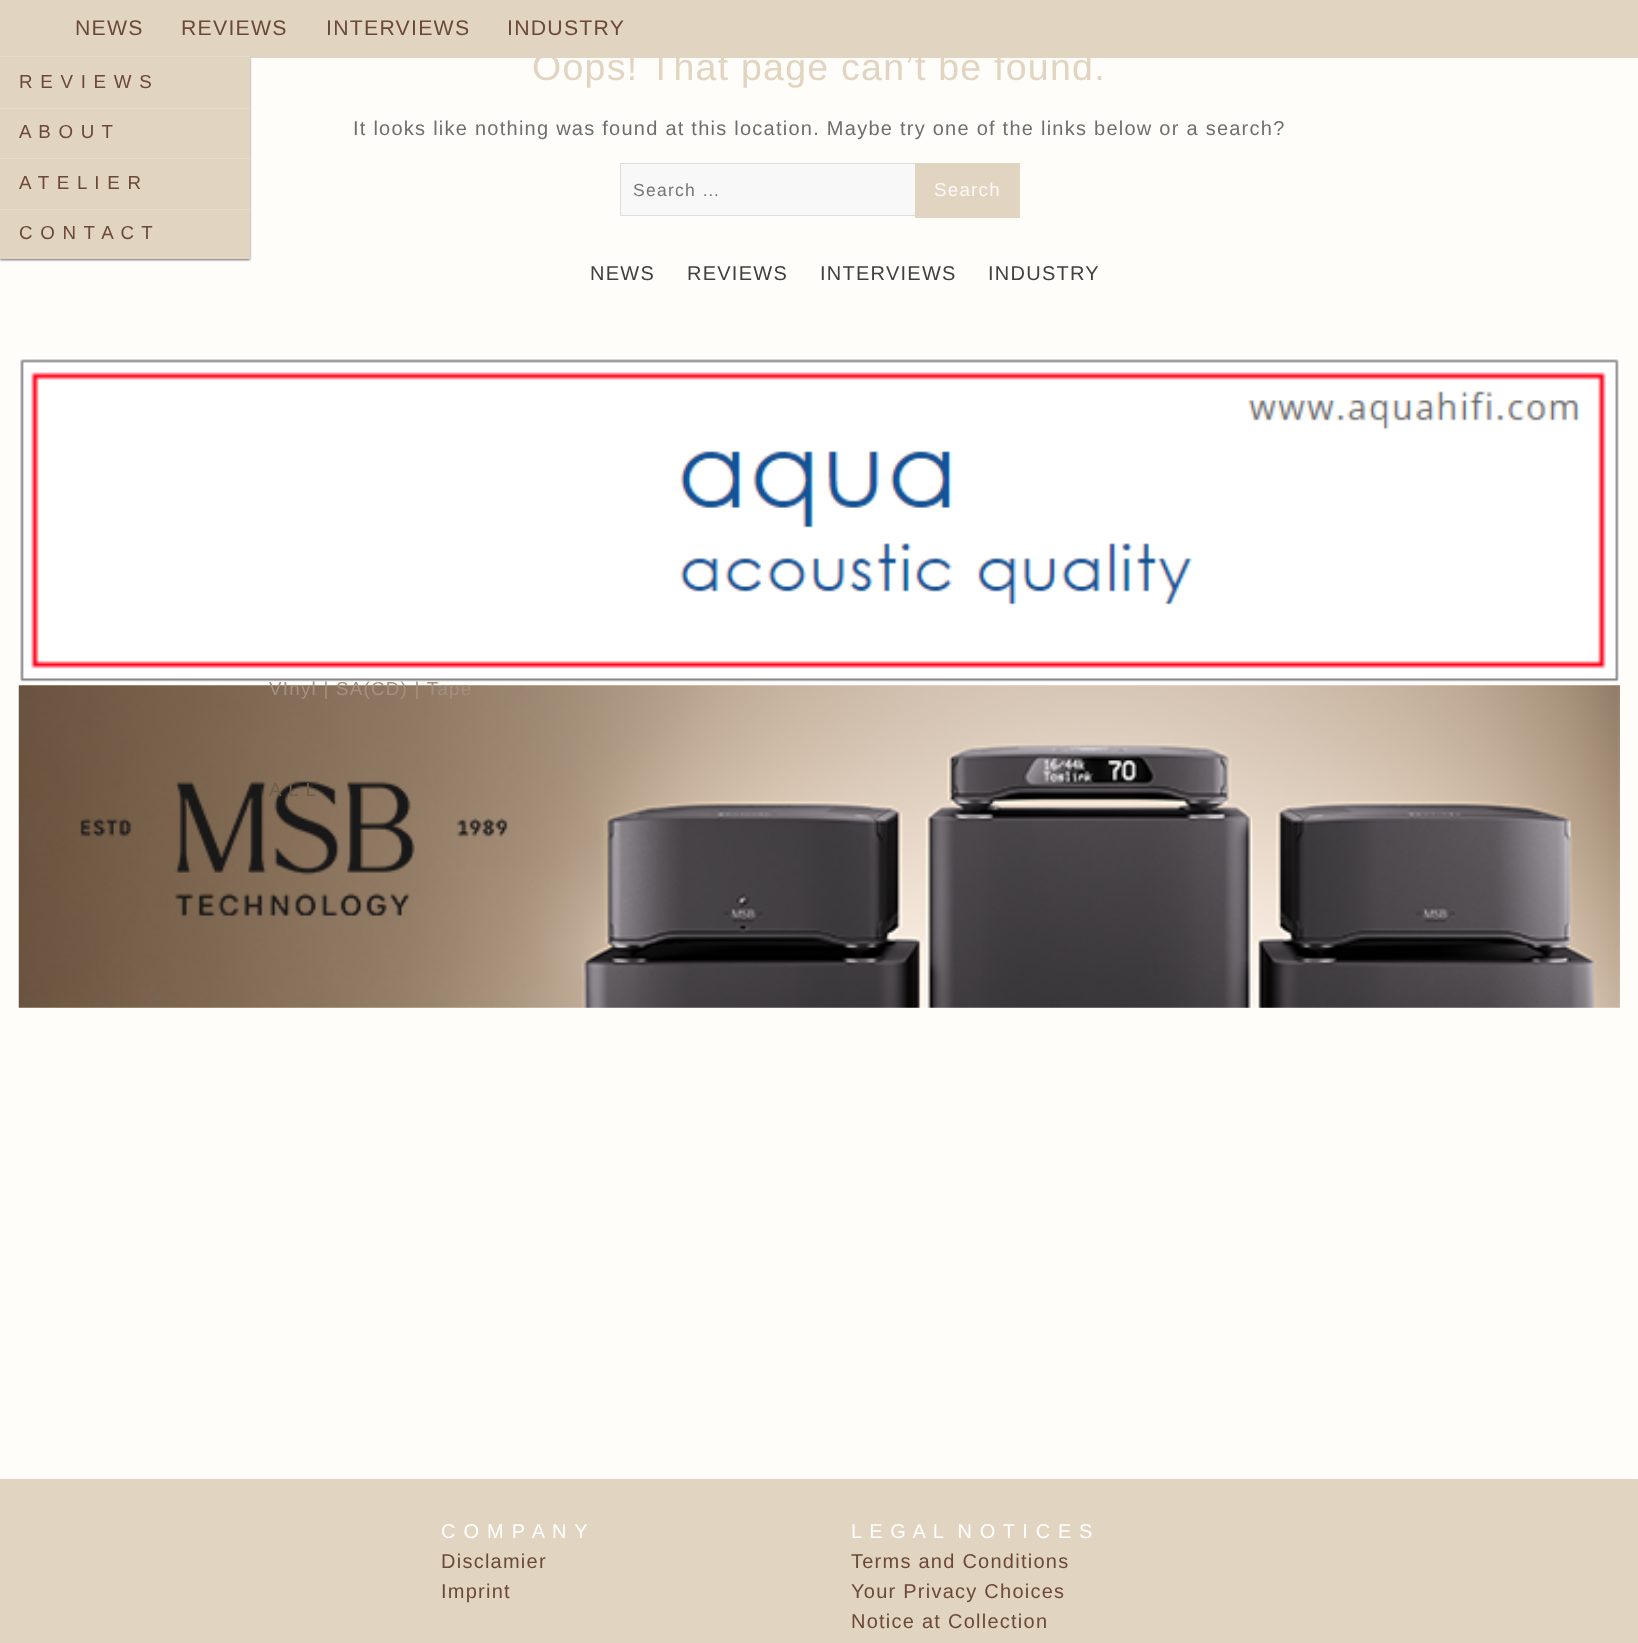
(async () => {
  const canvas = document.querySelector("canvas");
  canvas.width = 1638;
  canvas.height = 1643;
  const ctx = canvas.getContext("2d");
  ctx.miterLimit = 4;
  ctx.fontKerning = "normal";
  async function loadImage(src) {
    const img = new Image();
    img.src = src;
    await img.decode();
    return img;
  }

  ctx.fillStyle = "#fffdf9";
  ctx.fillRect(0, 0, 1638, 1643);
  ctx.fillStyle = "#e1d4c1";
  ctx.fillRect(0, 0, 1638, 58);
  ctx.fillStyle = "#6f6e6e";
  ctx.filter = "blur(1px)";
  ctx.beginPath();
  ctx.rect(0, 58, 250, 202);
  ctx.fill();
  ctx.filter = "none";
  for (const [x, y, w, h, color] of [
    [0, 57, 250, 202, "#e1d4c1"],
    [0, 56, 250, 1, "#e6dccc"],
    [0, 108, 250, 1, "#e6dccc"],
    [0, 158, 250, 1, "#e6dccc"],
    [0, 209, 250, 1, "#e6dccc"],
    [621, 164, 294, 51, "#f8f8f8"],
  ]) {
    ctx.fillStyle = color;
    ctx.fillRect(x, y, w, h);
  }
  ctx.strokeStyle = "#dddddd";
  ctx.strokeRect(620.5, 163.5, 399, 52);
  ctx.fillStyle = "#e1d4c1";
  ctx.fillRect(915, 163, 105, 55);
  ctx.drawImage(await loadImage("img/1.png"), 19, 358, 1601, 325);
  ctx.drawImage(await loadImage("img/2.png"), 18, 685, 1602, 323);
  ctx.fillRect(0, 1479, 1638, 164);
  ctx.letterSpacing = "1.25px";
  ctx.font = "21.25px Liberation Sans";
  ctx.fillStyle = "#6b4838";
  for (const [text, x, y] of [
    ["NEWS", 75, 35],
    ["REVIEWS", 181, 35],
    ["INTERVIEWS", 326, 35],
    ["INDUSTRY", 507, 35],
  ]) {
    ctx.fillText(text, x, y);
  }
  ctx.font = "18.75px Liberation Sans";
  ctx.fillText("R E V I E W S", 19, 88);
  ctx.fillStyle = "#a3917f";
  ctx.fillText("VInyl | SA(CD) | Tape", 269, 695);
  ctx.fillStyle = "#6f5d4b";
  ctx.fillText("A L L", 269, 796);
  ctx.fillStyle = "#6b4838";
  for (const [text, x, y] of [
    ["A B O U T", 19, 138],
    ["A T E L I E R", 19, 189],
    ["C O N T A C T", 19, 239],
  ]) {
    ctx.fillText(text, x, y);
  }
  ctx.font = "37.5px Liberation Sans";
  ctx.fillStyle = "#e1d4c1";
  ctx.fillText("Oops! That page can’t be found.", 532, 80);
  ctx.font = "20px Liberation Sans";
  ctx.fillStyle = "#6f6e6e";
  ctx.fillText("It looks like nothing was found at this location. Maybe try one of the links below or a search?", 353, 135);
  ctx.font = "17.5px Liberation Sans";
  ctx.fillStyle = "#757575";
  ctx.fillText("Search …", 633, 196);
  ctx.font = "18.75px Liberation Sans";
  ctx.fillStyle = "#fbf9f5";
  ctx.fillText("Search", 934, 196);
  ctx.font = "20px Liberation Sans";
  ctx.fillStyle = "#404040";
  for (const [text, x, y] of [
    ["NEWS", 590, 280],
    ["REVIEWS", 687, 280],
    ["INTERVIEWS", 820, 280],
    ["INDUSTRY", 988, 280],
  ]) {
    ctx.fillText(text, x, y);
  }
  ctx.fillStyle = "#ffffff";
  ctx.fillText("C O M P A N Y", 441, 1538);
  ctx.fillStyle = "#6b4838";
  ctx.fillText("Disclamier", 441, 1568);
  ctx.fillText("Imprint", 441, 1598);
  ctx.wordSpacing = "-0.25px";
  ctx.fillStyle = "#ffffff";
  ctx.fillText("L E G A L  N O T I C E S", 851, 1538);
  ctx.wordSpacing = "0px";
  ctx.fillStyle = "#6b4838";
  for (const [text, x, y] of [
    ["Terms and Conditions", 851, 1568],
    ["Your Privacy Choices", 851, 1598],
    ["Notice at Collection", 851, 1628],
  ]) {
    ctx.fillText(text, x, y);
  }
})();
